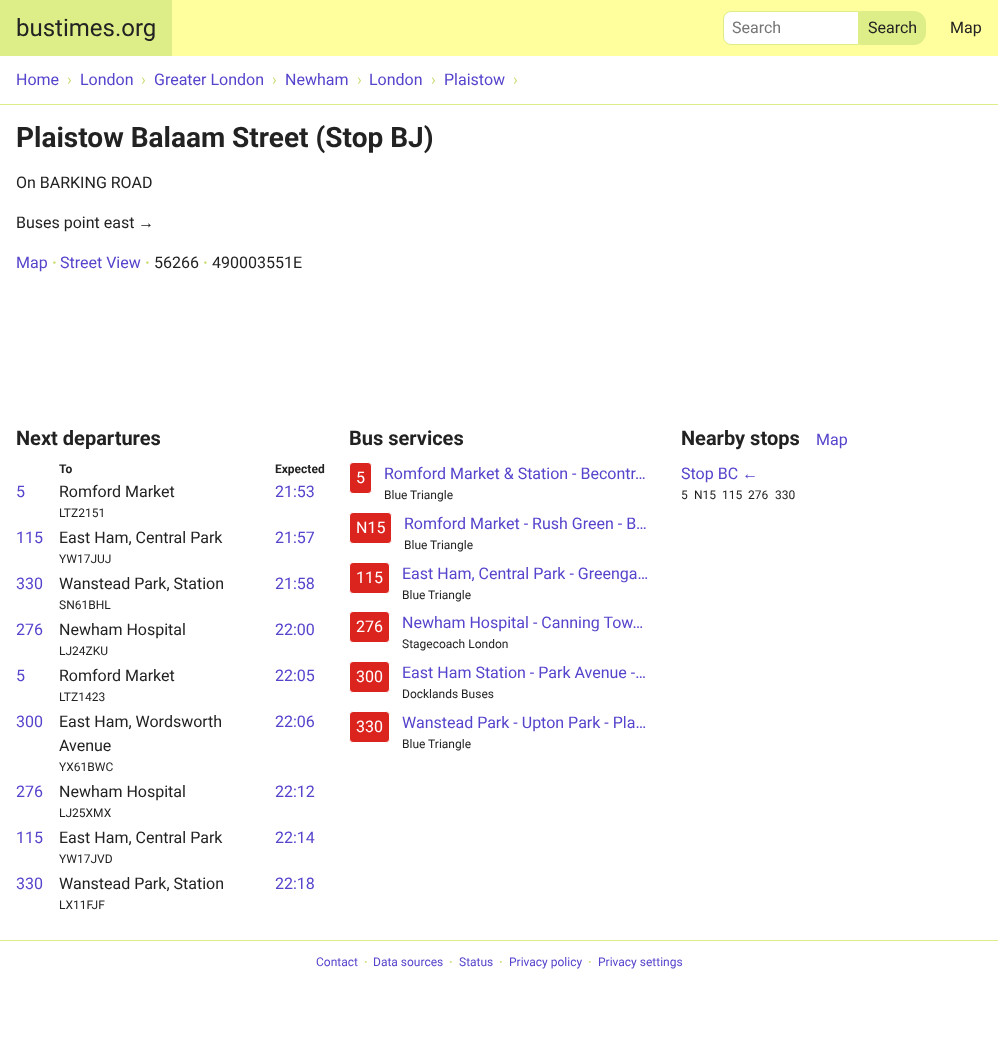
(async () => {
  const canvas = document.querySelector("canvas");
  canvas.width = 998;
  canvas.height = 1054;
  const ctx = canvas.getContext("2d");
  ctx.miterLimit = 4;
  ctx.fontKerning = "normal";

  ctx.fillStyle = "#ffffff";
  ctx.fillRect(0, 0, 998, 1054);
  ctx.fillStyle = "#ffff9e";
  ctx.fillRect(172, 0, 826, 56);
  ctx.fillStyle = "#ddee88";
  ctx.fillRect(0, 0, 172, 56);
  ctx.fillStyle = "#ffffff";
  ctx.beginPath();
  ctx.roundRect(723.5, 11.5, 135, 33, [7.5, 0, 0, 7.5]);
  ctx.fill();
  ctx.strokeStyle = "#ddee88";
  ctx.stroke();
  ctx.fillStyle = "#ddee88";
  ctx.beginPath();
  ctx.roundRect(859.5, 11.5, 66, 33, [0, 11.5, 11.5, 0]);
  ctx.fill();
  ctx.stroke();
  ctx.fillRect(0, 104, 998, 1);
  ctx.fillStyle = "#dc241f";
  ctx.beginPath();
  ctx.roundRect(349.5, 462.5, 22, 31, 3.5);
  ctx.fill();
  ctx.strokeStyle = "#ffffff";
  ctx.stroke();
  ctx.beginPath();
  ctx.roundRect(349.5, 512.5, 42, 31, 3.5);
  ctx.fill();
  ctx.stroke();
  ctx.beginPath();
  ctx.roundRect(349.5, 562.5, 40, 31, 3.5);
  ctx.fill();
  ctx.stroke();
  ctx.beginPath();
  ctx.roundRect(349.5, 611.5, 40, 31, 3.5);
  ctx.fill();
  ctx.stroke();
  ctx.beginPath();
  ctx.roundRect(349.5, 661.5, 40, 31, 3.5);
  ctx.fill();
  ctx.stroke();
  ctx.beginPath();
  ctx.roundRect(349.5, 711.5, 40, 31, 3.5);
  ctx.fill();
  ctx.stroke();
  ctx.fillStyle = "#ddee88";
  ctx.fillRect(0, 940, 998, 1);
  ctx.font = "24px Roboto";
  ctx.fillStyle = "#222222";
  ctx.fillText("bustimes.org", 16, 36);
  ctx.font = "16px Roboto";
  ctx.fillStyle = "#757575";
  ctx.fillText("Search", 732, 33);
  ctx.fillStyle = "#222222";
  ctx.fillText("Search", 868, 33);
  ctx.fillText("Map", 950, 33);
  ctx.fillStyle = "#5544cc";
  ctx.fillText("Home", 16, 85);
  ctx.fillStyle = "#ccdd77";
  ctx.fillText("›", 67, 85);
  ctx.fillStyle = "#5544cc";
  ctx.fillText("London", 80, 85);
  ctx.fillStyle = "#ccdd77";
  ctx.fillText("›", 141, 85);
  ctx.fillStyle = "#5544cc";
  ctx.fillText("Greater London", 154, 85);
  ctx.fillStyle = "#ccdd77";
  ctx.fillText("›", 272, 85);
  ctx.fillStyle = "#5544cc";
  ctx.fillText("Newham", 285, 85);
  ctx.fillStyle = "#ccdd77";
  ctx.fillText("›", 357, 85);
  ctx.fillStyle = "#5544cc";
  ctx.fillText("London", 369, 85);
  ctx.fillStyle = "#ccdd77";
  ctx.fillText("›", 431, 85);
  ctx.fillStyle = "#5544cc";
  ctx.fillText("Plaistow", 444, 85);
  ctx.fillStyle = "#ccdd77";
  ctx.fillText("›", 513, 85);
  ctx.font = "bold 28px Roboto";
  ctx.fillStyle = "#222222";
  ctx.fillText("Plaistow Balaam Street (Stop BJ)", 16, 147);
  ctx.font = "16px Roboto";
  ctx.fillText("On BARKING ROAD", 16, 188);
  ctx.fillText("Buses point east", 16, 228);
  ctx.font = "16px Liberation Sans";
  ctx.fillText("→", 138, 228);
  ctx.font = "16px Roboto";
  ctx.fillStyle = "#5544cc";
  ctx.fillText("Map", 16, 268);
  ctx.font = "bold 16px Roboto";
  ctx.fillStyle = "#ccdd77";
  ctx.fillText("·", 52, 268);
  ctx.font = "16px Roboto";
  ctx.fillStyle = "#5544cc";
  ctx.fillText("Street View", 60, 268);
  ctx.font = "bold 16px Roboto";
  ctx.fillStyle = "#ccdd77";
  ctx.fillText("·", 145, 268);
  ctx.font = "16px Roboto";
  ctx.fillStyle = "#222222";
  ctx.fillText("56266", 154, 268);
  ctx.font = "bold 16px Roboto";
  ctx.fillStyle = "#ccdd77";
  ctx.fillText("·", 203, 268);
  ctx.font = "16px Roboto";
  ctx.fillStyle = "#222222";
  ctx.fillText("490003551E", 212, 268);
  ctx.font = "bold 20px Roboto";
  ctx.fillText("Next departures", 16, 445);
  ctx.font = "bold 12px Roboto";
  ctx.fillText("To", 59, 473);
  ctx.fillText("Expected", 275, 473);
  ctx.font = "16px Roboto";
  ctx.fillStyle = "#5544cc";
  ctx.fillText("5", 16, 497);
  ctx.fillStyle = "#222222";
  ctx.fillText("Romford Market", 59, 497);
  ctx.font = "12px Roboto";
  ctx.fillText("LTZ2151", 59, 517);
  ctx.font = "16px Roboto";
  ctx.fillStyle = "#5544cc";
  ctx.fillText("21:53", 275, 497);
  ctx.fillText("115", 16, 543);
  ctx.fillStyle = "#222222";
  ctx.fillText("East Ham, Central Park", 59, 543);
  ctx.font = "12px Roboto";
  ctx.fillText("YW17JUJ", 59, 563);
  ctx.font = "16px Roboto";
  ctx.fillStyle = "#5544cc";
  ctx.fillText("21:57", 275, 543);
  ctx.fillText("330", 16, 589);
  ctx.fillStyle = "#222222";
  ctx.fillText("Wanstead Park, Station", 59, 589);
  ctx.font = "12px Roboto";
  ctx.fillText("SN61BHL", 59, 609);
  ctx.font = "16px Roboto";
  ctx.fillStyle = "#5544cc";
  ctx.fillText("21:58", 275, 589);
  ctx.fillText("276", 16, 635);
  ctx.fillStyle = "#222222";
  ctx.fillText("Newham Hospital", 59, 635);
  ctx.font = "12px Roboto";
  ctx.fillText("LJ24ZKU", 59, 655);
  ctx.font = "16px Roboto";
  ctx.fillStyle = "#5544cc";
  ctx.fillText("22:00", 275, 635);
  ctx.fillText("5", 16, 681);
  ctx.fillStyle = "#222222";
  ctx.fillText("Romford Market", 59, 681);
  ctx.font = "12px Roboto";
  ctx.fillText("LTZ1423", 59, 701);
  ctx.font = "16px Roboto";
  ctx.fillStyle = "#5544cc";
  ctx.fillText("22:05", 275, 681);
  ctx.fillText("300", 16, 727);
  ctx.fillStyle = "#222222";
  ctx.fillText("East Ham, Wordsworth", 59, 727);
  ctx.fillText("Avenue", 59, 751);
  ctx.font = "12px Roboto";
  ctx.fillText("YX61BWC", 59, 771);
  ctx.font = "16px Roboto";
  ctx.fillStyle = "#5544cc";
  ctx.fillText("22:06", 275, 727);
  ctx.fillText("276", 16, 797);
  ctx.fillStyle = "#222222";
  ctx.fillText("Newham Hospital", 59, 797);
  ctx.font = "12px Roboto";
  ctx.fillText("LJ25XMX", 59, 817);
  ctx.font = "16px Roboto";
  ctx.fillStyle = "#5544cc";
  ctx.fillText("22:12", 275, 797);
  ctx.fillText("115", 16, 843);
  ctx.fillStyle = "#222222";
  ctx.fillText("East Ham, Central Park", 59, 843);
  ctx.font = "12px Roboto";
  ctx.fillText("YW17JVD", 59, 863);
  ctx.font = "16px Roboto";
  ctx.fillStyle = "#5544cc";
  ctx.fillText("22:14", 275, 843);
  ctx.fillText("330", 16, 889);
  ctx.fillStyle = "#222222";
  ctx.fillText("Wanstead Park, Station", 59, 889);
  ctx.font = "12px Roboto";
  ctx.fillText("LX11FJF", 59, 909);
  ctx.font = "16px Roboto";
  ctx.fillStyle = "#5544cc";
  ctx.fillText("22:18", 275, 889);
  ctx.font = "bold 20px Roboto";
  ctx.fillStyle = "#222222";
  ctx.fillText("Bus services", 349, 445);
  ctx.font = "16px Roboto";
  ctx.fillStyle = "#ffffff";
  ctx.fillText("5", 356, 483);
  ctx.fillStyle = "#5544cc";
  ctx.fillText("Romford Market & Station - Becontr…", 384, 479);
  ctx.font = "12px Roboto";
  ctx.fillStyle = "#222222";
  ctx.fillText("Blue Triangle", 384, 499);
  ctx.font = "16px Roboto";
  ctx.fillStyle = "#ffffff";
  ctx.fillText("N15", 356, 533);
  ctx.fillStyle = "#5544cc";
  ctx.fillText("Romford Market - Rush Green - B…", 404, 529);
  ctx.font = "12px Roboto";
  ctx.fillStyle = "#222222";
  ctx.fillText("Blue Triangle", 404, 549);
  ctx.font = "16px Roboto";
  ctx.fillStyle = "#ffffff";
  ctx.fillText("115", 356, 583);
  ctx.fillStyle = "#5544cc";
  ctx.fillText("East Ham, Central Park - Greenga…", 402, 579);
  ctx.font = "12px Roboto";
  ctx.fillStyle = "#222222";
  ctx.fillText("Blue Triangle", 402, 599);
  ctx.font = "16px Roboto";
  ctx.fillStyle = "#ffffff";
  ctx.fillText("276", 356, 632);
  ctx.fillStyle = "#5544cc";
  ctx.fillText("Newham Hospital - Canning Tow…", 402, 628);
  ctx.font = "12px Roboto";
  ctx.fillStyle = "#222222";
  ctx.fillText("Stagecoach London", 402, 648);
  ctx.font = "16px Roboto";
  ctx.fillStyle = "#ffffff";
  ctx.fillText("300", 356, 682);
  ctx.fillStyle = "#5544cc";
  ctx.fillText("East Ham Station - Park Avenue -…", 402, 678);
  ctx.font = "12px Roboto";
  ctx.fillStyle = "#222222";
  ctx.fillText("Docklands Buses", 402, 698);
  ctx.font = "16px Roboto";
  ctx.fillStyle = "#ffffff";
  ctx.fillText("330", 356, 732);
  ctx.fillStyle = "#5544cc";
  ctx.fillText("Wanstead Park - Upton Park - Pla…", 402, 728);
  ctx.font = "12px Roboto";
  ctx.fillStyle = "#222222";
  ctx.fillText("Blue Triangle", 402, 748);
  ctx.font = "bold 20px Roboto";
  ctx.fillText("Nearby stops", 681, 445);
  ctx.font = "16px Roboto";
  ctx.fillStyle = "#5544cc";
  ctx.fillText("Map", 816, 445);
  ctx.fillText("Stop BC", 681, 479);
  ctx.font = "16px Liberation Sans";
  ctx.fillText("←", 742, 479);
  ctx.font = "12px Roboto";
  ctx.fillStyle = "#222222";
  for (const [text, x, y] of [
    ["5", 681, 499],
    ["N15", 694, 499],
    ["115", 722, 499],
    ["276", 748, 499],
    ["330", 775, 499],
  ]) {
    ctx.fillText(text, x, y);
  }
  ctx.fillStyle = "#5544cc";
  ctx.fillText("Contact", 316, 966);
  ctx.font = "bold 12px Roboto";
  ctx.fillStyle = "#ccdd77";
  ctx.fillText("·", 364, 966);
  ctx.font = "12px Roboto";
  ctx.fillStyle = "#5544cc";
  ctx.fillText("Data sources", 373, 966);
  ctx.font = "bold 12px Roboto";
  ctx.fillStyle = "#ccdd77";
  ctx.fillText("·", 449, 966);
  ctx.font = "12px Roboto";
  ctx.fillStyle = "#5544cc";
  ctx.fillText("Status", 459, 966);
  ctx.font = "bold 12px Roboto";
  ctx.fillStyle = "#ccdd77";
  ctx.fillText("·", 499, 966);
  ctx.font = "12px Roboto";
  ctx.fillStyle = "#5544cc";
  ctx.fillText("Privacy policy", 509, 966);
  ctx.font = "bold 12px Roboto";
  ctx.fillStyle = "#ccdd77";
  ctx.fillText("·", 588, 966);
  ctx.font = "12px Roboto";
  ctx.fillStyle = "#5544cc";
  ctx.fillText("Privacy settings", 598, 966);
})();
